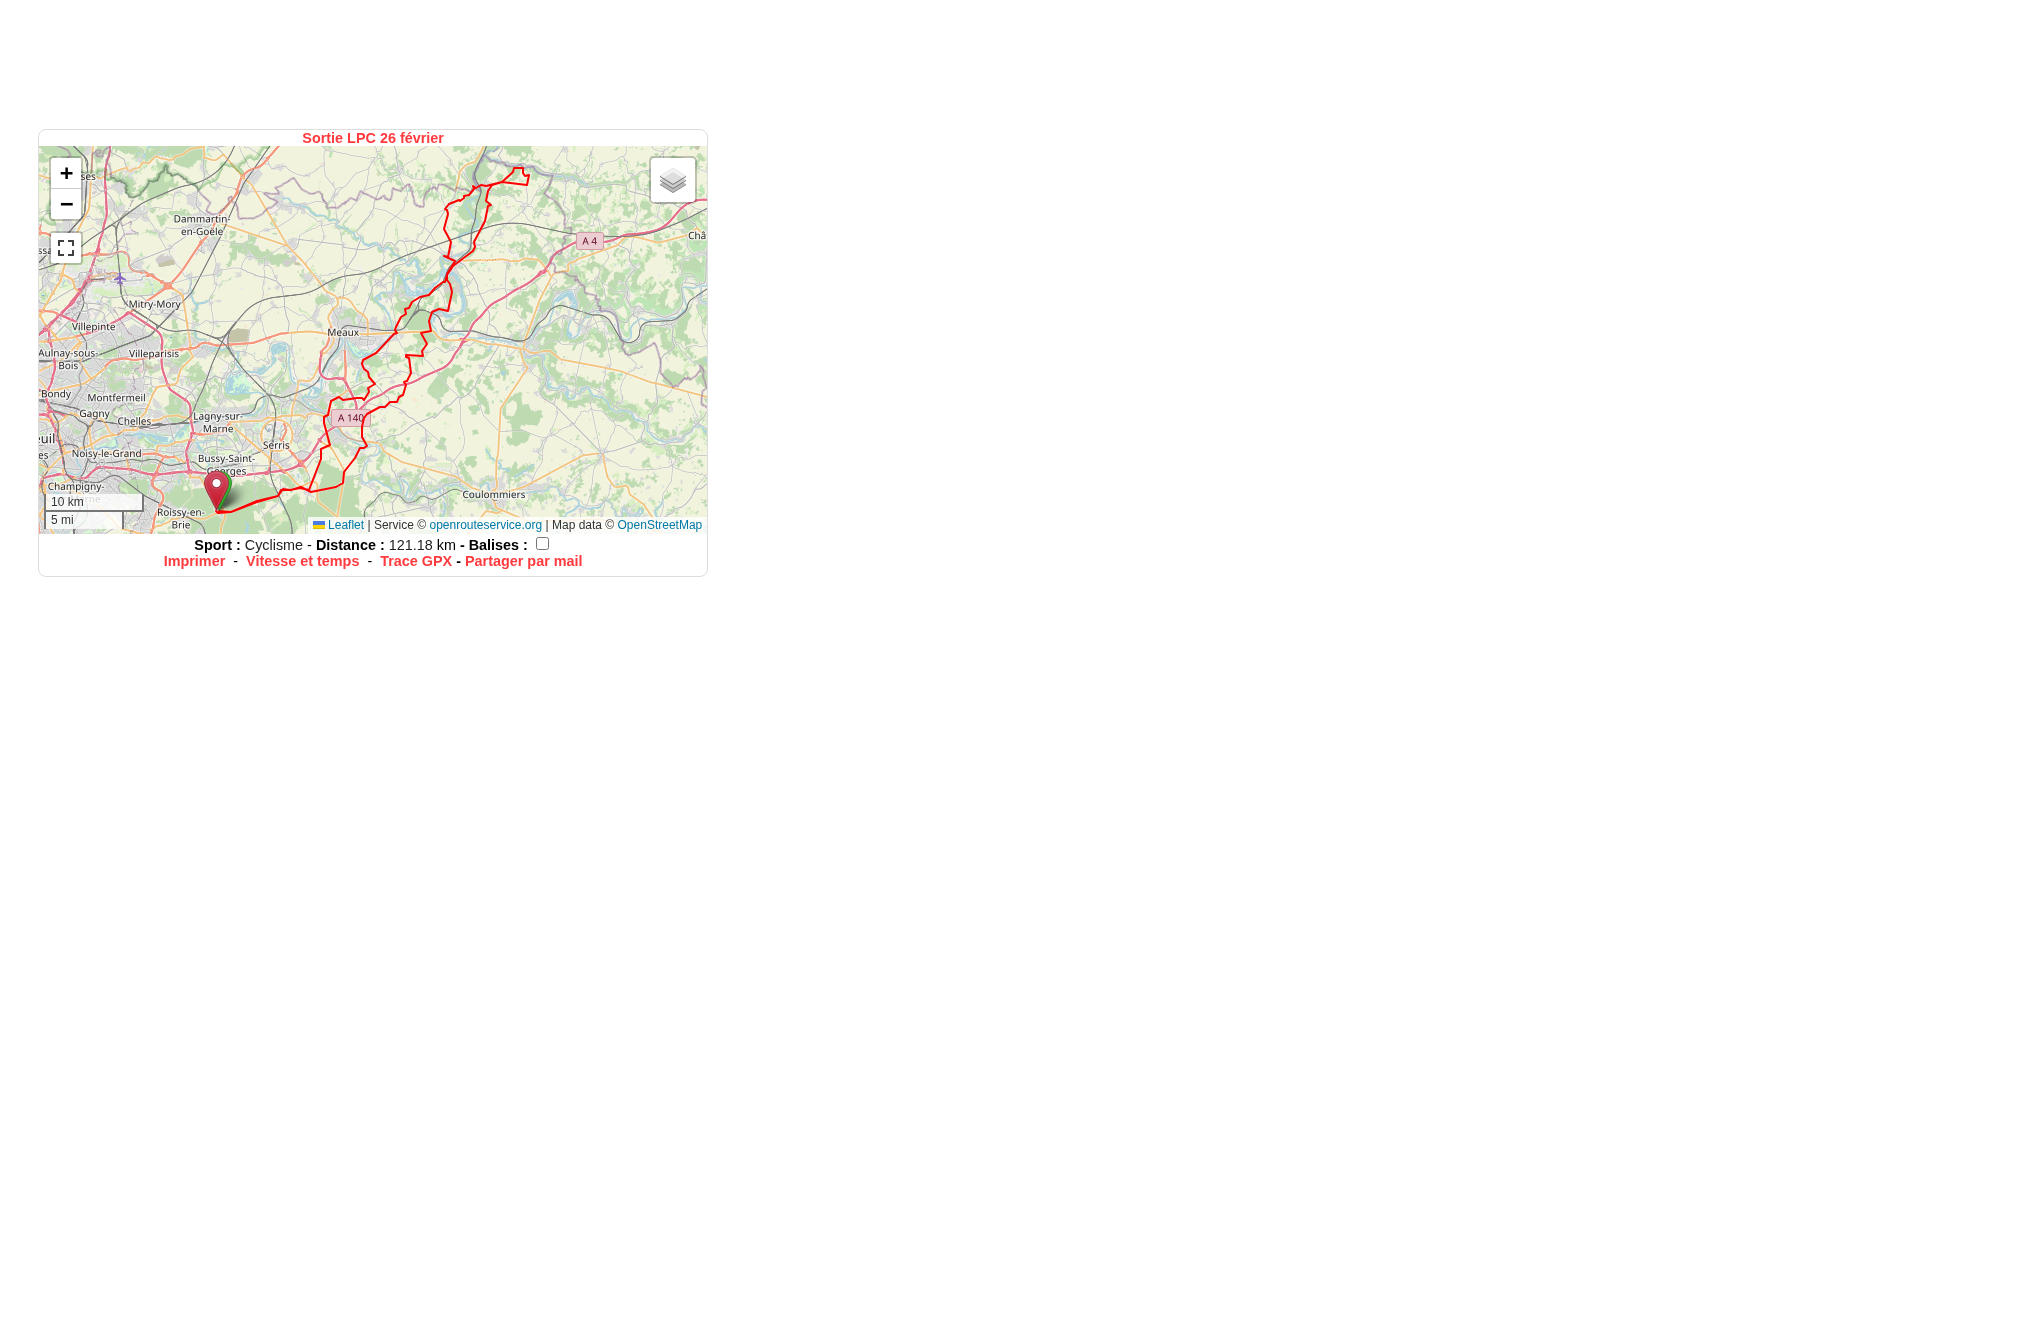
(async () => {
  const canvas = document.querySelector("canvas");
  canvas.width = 2029;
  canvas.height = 1324;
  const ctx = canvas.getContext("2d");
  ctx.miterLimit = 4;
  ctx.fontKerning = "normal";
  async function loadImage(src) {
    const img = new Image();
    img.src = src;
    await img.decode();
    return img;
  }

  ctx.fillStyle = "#ffffff";
  ctx.fillRect(0, 0, 2029, 1324);
  ctx.drawImage(await loadImage("img/1.png"), 38, 129, 670, 448);
})();
